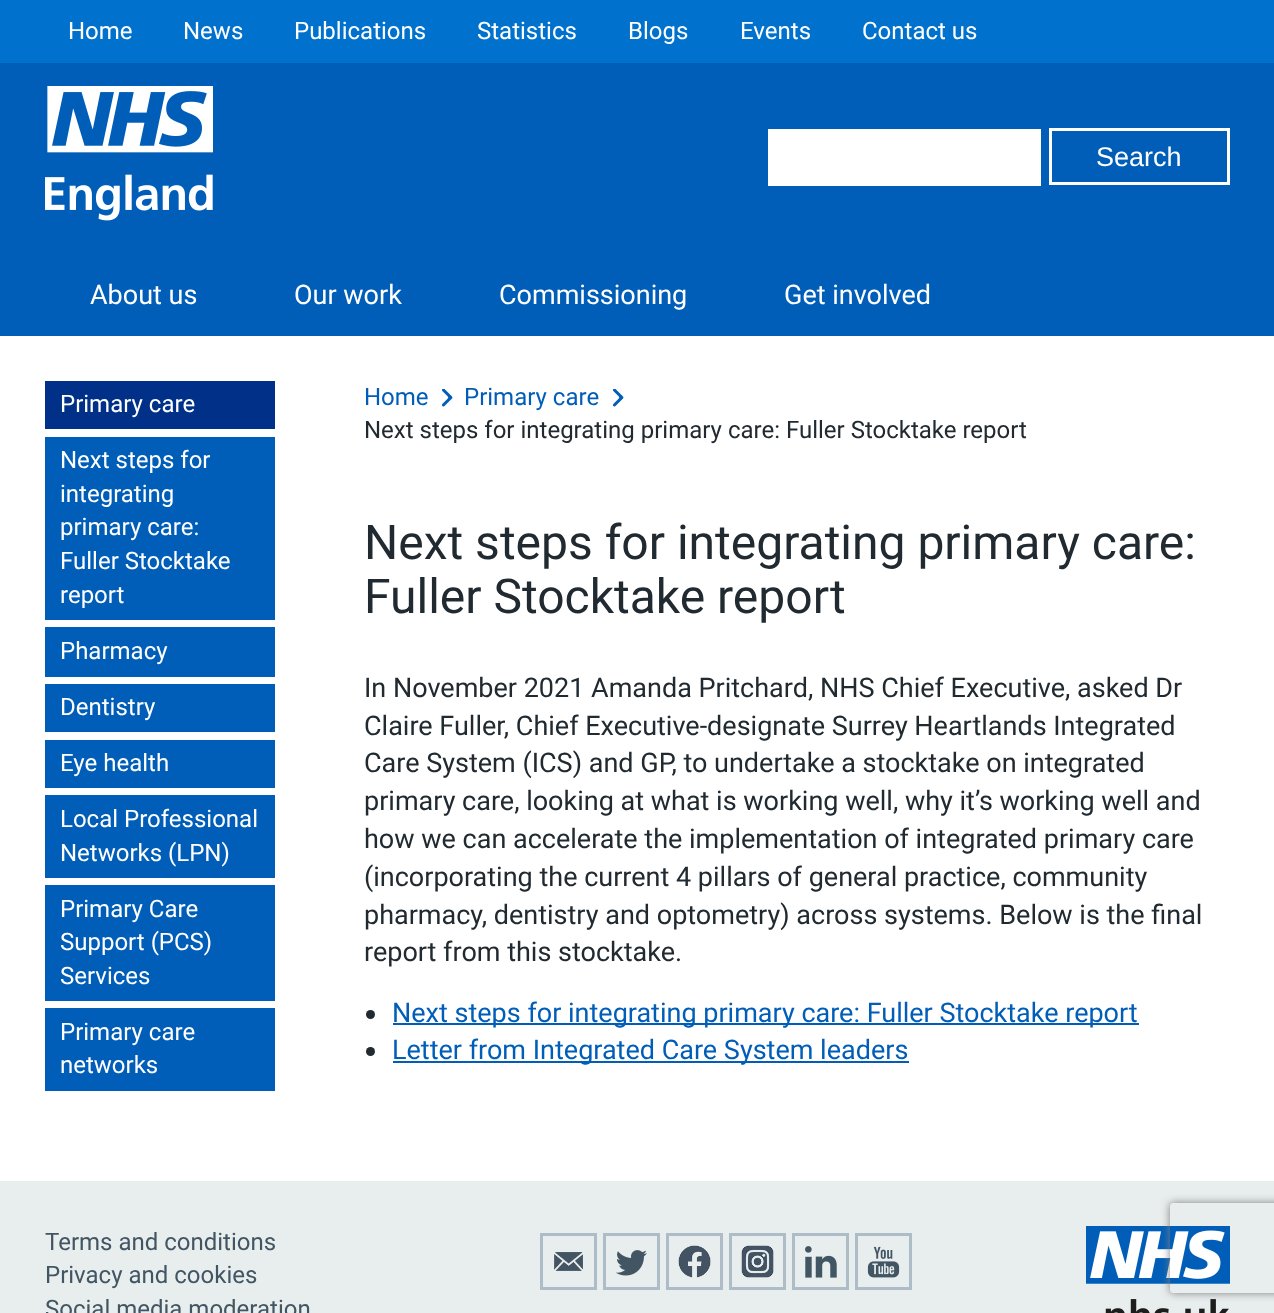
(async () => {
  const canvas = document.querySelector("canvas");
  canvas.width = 1274;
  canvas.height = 1313;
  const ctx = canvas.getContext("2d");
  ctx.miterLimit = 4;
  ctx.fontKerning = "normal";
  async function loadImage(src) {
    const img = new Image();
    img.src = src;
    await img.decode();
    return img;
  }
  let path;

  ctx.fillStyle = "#ffffff";
  ctx.fillRect(0, 0, 1274, 1313);
  ctx.fillStyle = "#0072ce";
  ctx.fillRect(0, 0, 1274, 63);
  ctx.fillStyle = "#005eb8";
  ctx.fillRect(0, 63, 1274, 273);
  ctx.drawImage(await loadImage("img/1.png"), 45, 86, 168, 135);
  ctx.fillStyle = "#ffffff";
  ctx.fillRect(768, 129, 273, 57);
  ctx.strokeStyle = "#ffffff";
  ctx.lineWidth = 3;
  ctx.strokeRect(1050.5, 129.5, 178, 54);
  for (const [x, y, w, h, color] of [
    [45, 381, 230, 48, "#003087"],
    [45, 437, 230, 183, "#005eb8"],
    [45, 627, 230, 50, "#005eb8"],
    [45, 684, 230, 48, "#005eb8"],
    [45, 740, 230, 48, "#005eb8"],
    [45, 795, 230, 83, "#005eb8"],
    [45, 885, 230, 116, "#005eb8"],
    [45, 1008, 230, 83, "#005eb8"],
  ]) {
    ctx.fillStyle = color;
    ctx.fillRect(x, y, w, h);
  }
  ctx.drawImage(await loadImage("img/2.png"), 442, 389, 11, 18);
  ctx.drawImage(await loadImage("img/2.png"), 613, 389, 11, 18);
  ctx.fillStyle = "#202a30";
  ctx.beginPath();
  ctx.arc(370.5, 1014.5, 4.5, 0, Math.PI * 2);
  ctx.fill();
  ctx.fillStyle = "#005eb8";
  ctx.fillRect(393, 1023, 746, 2);
  ctx.fillStyle = "#202a30";
  ctx.beginPath();
  ctx.arc(370.5, 1051.5, 4.5, 0, Math.PI * 2);
  ctx.fill();
  ctx.fillStyle = "#005eb8";
  ctx.fillRect(393, 1061, 516, 2);
  ctx.fillStyle = "#e8edee";
  ctx.fillRect(0, 1181, 1274, 132);
  ctx.drawImage(await loadImage("img/3.png"), 554, 1252, 29, 19);
  ctx.strokeStyle = "#adbcc7";
  ctx.strokeRect(541.5, 1234.5, 54, 54);
  ctx.drawImage(await loadImage("img/4.png"), 616, 1250, 31, 26);
  ctx.strokeRect(604.5, 1234.5, 54, 54);
  ctx.drawImage(await loadImage("img/5.png"), 678, 1245, 33, 33);
  ctx.strokeRect(667.5, 1234.5, 54, 54);
  ctx.drawImage(await loadImage("img/6.png"), 741, 1245, 33, 33);
  ctx.strokeRect(730.5, 1234.5, 54, 54);
  ctx.drawImage(await loadImage("img/7.png"), 805, 1246, 32, 32);
  ctx.strokeRect(793.5, 1234.5, 54, 54);
  ctx.drawImage(await loadImage("img/8.png"), 867, 1246, 33, 32);
  ctx.strokeRect(856.5, 1234.5, 54, 54);
  ctx.drawImage(await loadImage("img/9.png"), 1086, 1226, 144, 87);
  ctx.save();
  path = new Path2D("M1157 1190H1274V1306H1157ZM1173 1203H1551C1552.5 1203 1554 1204.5 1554 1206V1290C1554 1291.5 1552.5 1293 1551 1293H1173C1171.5 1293 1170 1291.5 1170 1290V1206C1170 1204.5 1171.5 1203 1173 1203Z");
  ctx.clip(path, "evenodd");
  ctx.fillStyle = "#808080";
  ctx.filter = "blur(4px)";
  ctx.beginPath();
  ctx.roundRect(1170, 1203, 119, 90, 3);
  ctx.fill();
  ctx.filter = "none";
  ctx.restore();
  ctx.font = "24px Roboto";
  ctx.fillStyle = "#ffffff";
  for (const [text, x, y] of [
    ["Home", 68, 39],
    ["News", 183, 39],
    ["Publications", 294, 39],
    ["Statistics", 477, 39],
    ["Blogs", 628, 39],
    ["Events", 740, 39],
    ["Contact us", 862, 39],
  ]) {
    ctx.fillText(text, x, y);
  }
  ctx.font = "27px Liberation Sans";
  ctx.fillText("Search", 1096, 166);
  ctx.font = "27px Roboto";
  for (const [text, x, y] of [
    ["About us", 90, 304],
    ["Our work", 294, 304],
    ["Commissioning", 499, 304],
    ["Get involved", 784, 304],
  ]) {
    ctx.fillText(text, x, y);
  }
  ctx.font = "24px Roboto";
  for (const [text, x, y] of [
    ["Primary care", 60, 412],
    ["Next steps for", 60, 468],
    ["integrating", 60, 502],
    ["primary care:", 60, 535],
    ["Fuller Stocktake", 60, 569],
    ["report", 60, 603],
    ["Pharmacy", 60, 659],
    ["Dentistry", 60, 715],
    ["Eye health", 60, 771],
    ["Local Professional", 60, 827],
    ["Networks (LPN)", 60, 861],
    ["Primary Care", 60, 917],
    ["Support (PCS)", 60, 950],
    ["Services", 60, 984],
    ["Primary care", 60, 1040],
    ["networks", 60, 1073],
  ]) {
    ctx.fillText(text, x, y);
  }
  ctx.fillStyle = "#005eb8";
  ctx.fillText("Home", 364, 405);
  ctx.fillText("Primary care", 464, 405);
  ctx.fillStyle = "#202a30";
  ctx.fillText("Next steps for integrating primary care: Fuller Stocktake report", 364, 438);
  ctx.font = "48px Roboto";
  ctx.fillText("Next steps for integrating primary care:", 364, 559);
  ctx.fillText("Fuller Stocktake report", 364, 613);
  ctx.font = "27px Roboto";
  for (const [text, x, y] of [
    ["In November 2021 Amanda Pritchard, NHS Chief Executive, asked Dr", 364, 697],
    ["Claire Fuller, Chief Executive-designate Surrey Heartlands Integrated", 364, 735],
    ["Care System (ICS) and GP, to undertake a stocktake on integrated", 364, 772],
    ["primary care, looking at what is working well, why it’s working well and", 364, 810],
    ["how we can accelerate the implementation of integrated primary care", 364, 848],
    ["(incorporating the current 4 pillars of general practice, community", 364, 886],
    ["pharmacy, dentistry and optometry) across systems. Below is the final", 364, 924],
    ["report from this stocktake.", 364, 961],
  ]) {
    ctx.fillText(text, x, y);
  }
  ctx.fillStyle = "#005eb8";
  ctx.fillText("Next steps for integrating primary care: Fuller Stocktake report", 392, 1022);
  ctx.fillText("Letter from Integrated Care System leaders", 392, 1059);
  ctx.font = "24px Roboto";
  ctx.fillStyle = "#425563";
  for (const [text, x, y] of [
    ["Terms and conditions", 45, 1250],
    ["Privacy and cookies", 45, 1283],
    ["Social media moderation", 45, 1317],
  ]) {
    ctx.fillText(text, x, y);
  }
})();
